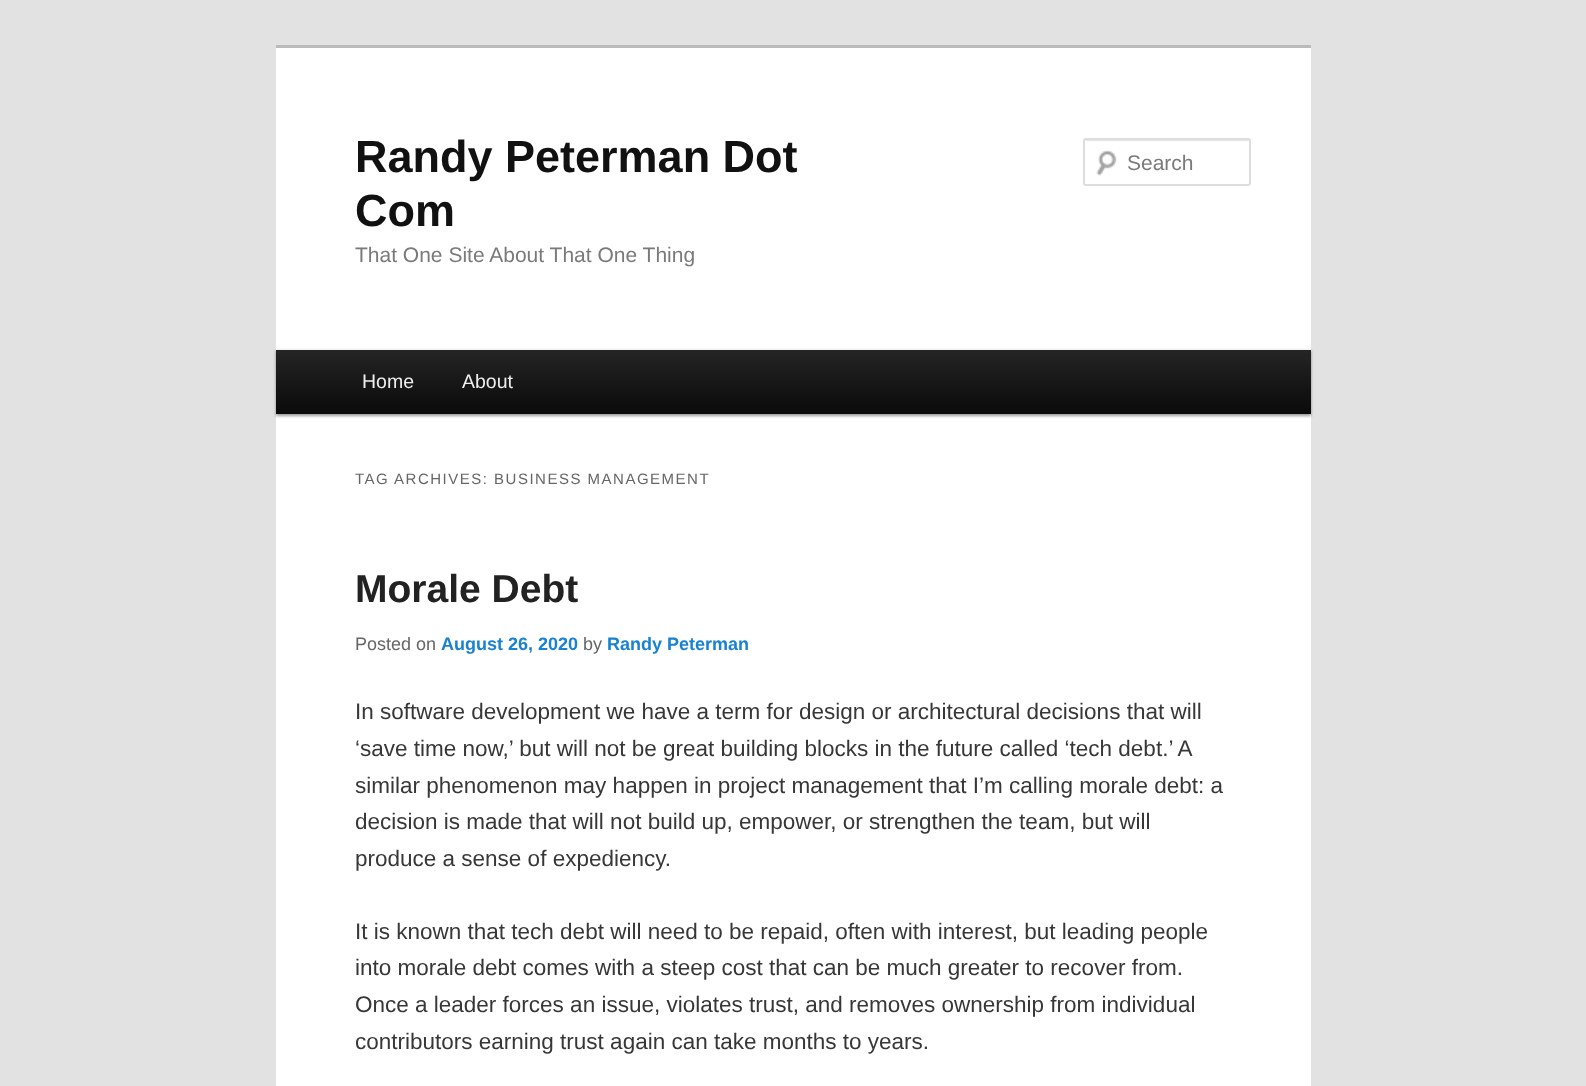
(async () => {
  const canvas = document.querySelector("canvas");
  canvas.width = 1586;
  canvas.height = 1086;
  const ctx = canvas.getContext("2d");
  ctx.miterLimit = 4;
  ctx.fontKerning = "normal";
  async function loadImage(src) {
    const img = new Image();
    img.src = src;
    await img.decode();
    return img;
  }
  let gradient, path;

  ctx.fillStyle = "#e2e2e2";
  ctx.fillRect(0, 0, 1586, 1086);
  ctx.fillStyle = "#ffffff";
  ctx.fillRect(276, 48, 1035, 1038);
  ctx.fillStyle = "#bbbbbb";
  ctx.fillRect(276, 45, 1035, 3);
  ctx.drawImage(await loadImage("img/1.png"), 1096, 150, 21, 26);
  ctx.fillStyle = "#e6e6e6";
  path = new Path2D("M1086 141H1248C1249 141 1250 142 1250 142V141L1249 140H1086L1085 141Z");
  ctx.fill(path);
  ctx.beginPath();
  ctx.roundRect(1084, 139, 166, 46, 2);
  ctx.strokeStyle = "#dddddd";
  ctx.lineWidth = 2;
  ctx.stroke();
  ctx.fillStyle = "rgba(0, 0, 0, 0.4)";
  ctx.filter = "blur(1.5px)";
  ctx.beginPath();
  ctx.rect(276, 351, 1035, 65);
  ctx.fill();
  ctx.filter = "none";
  gradient = ctx.createLinearGradient(794, 349, 794, 414);
  gradient.addColorStop(0, "#252525");
  gradient.addColorStop(1, "#0a0a0a");
  ctx.fillStyle = gradient;
  ctx.fillRect(276, 350, 1035, 64);
  ctx.font = "bold 45px Liberation Sans";
  ctx.fillStyle = "#111111";
  ctx.fillText("Randy Peterman Dot", 355, 172);
  ctx.fillText("Com", 355, 226);
  ctx.font = "21px Liberation Sans";
  ctx.fillStyle = "#7a7a7a";
  ctx.fillText("That One Site About That One Thing", 355, 262);
  ctx.fillText("Search", 1127, 170);
  ctx.font = "19.5px Liberation Sans";
  ctx.fillStyle = "#eeeeee";
  ctx.fillText("Home", 362, 388);
  ctx.fillText("About", 462, 388);
  ctx.letterSpacing = "1.5px";
  ctx.font = "15px Liberation Sans";
  ctx.fillStyle = "#666666";
  ctx.fillText("TAG ARCHIVES: BUSINESS MANAGEMENT", 355, 484);
  ctx.letterSpacing = "0px";
  ctx.font = "bold 39px Liberation Sans";
  ctx.fillStyle = "#222222";
  ctx.fillText("Morale Debt", 355, 602);
  ctx.font = "18px Liberation Sans";
  ctx.fillStyle = "#666666";
  ctx.fillText("Posted on", 355, 650);
  ctx.font = "bold 18px Liberation Sans";
  ctx.fillStyle = "#1982d1";
  ctx.fillText("August 26, 2020", 441, 650);
  ctx.font = "18px Liberation Sans";
  ctx.fillStyle = "#666666";
  ctx.fillText("by", 583, 650);
  ctx.font = "bold 18px Liberation Sans";
  ctx.fillStyle = "#1982d1";
  ctx.fillText("Randy Peterman", 607, 650);
  ctx.font = "22.5px Liberation Sans";
  ctx.fillStyle = "#373737";
  for (const [text, x, y] of [
    ["In software development we have a term for design or architectural decisions that will", 355, 719],
    ["‘save time now,’ but will not be great building blocks in the future called ‘tech debt.’ A", 355, 756],
    ["similar phenomenon may happen in project management that I’m calling morale debt: a", 355, 793],
    ["decision is made that will not build up, empower, or strengthen the team, but will", 355, 829],
    ["produce a sense of expediency.", 355, 866],
    ["It is known that tech debt will need to be repaid, often with interest, but leading people", 355, 939],
    ["into morale debt comes with a steep cost that can be much greater to recover from.", 355, 975],
    ["Once a leader forces an issue, violates trust, and removes ownership from individual", 355, 1012],
    ["contributors earning trust again can take months to years.", 355, 1049],
  ]) {
    ctx.fillText(text, x, y);
  }
})();
